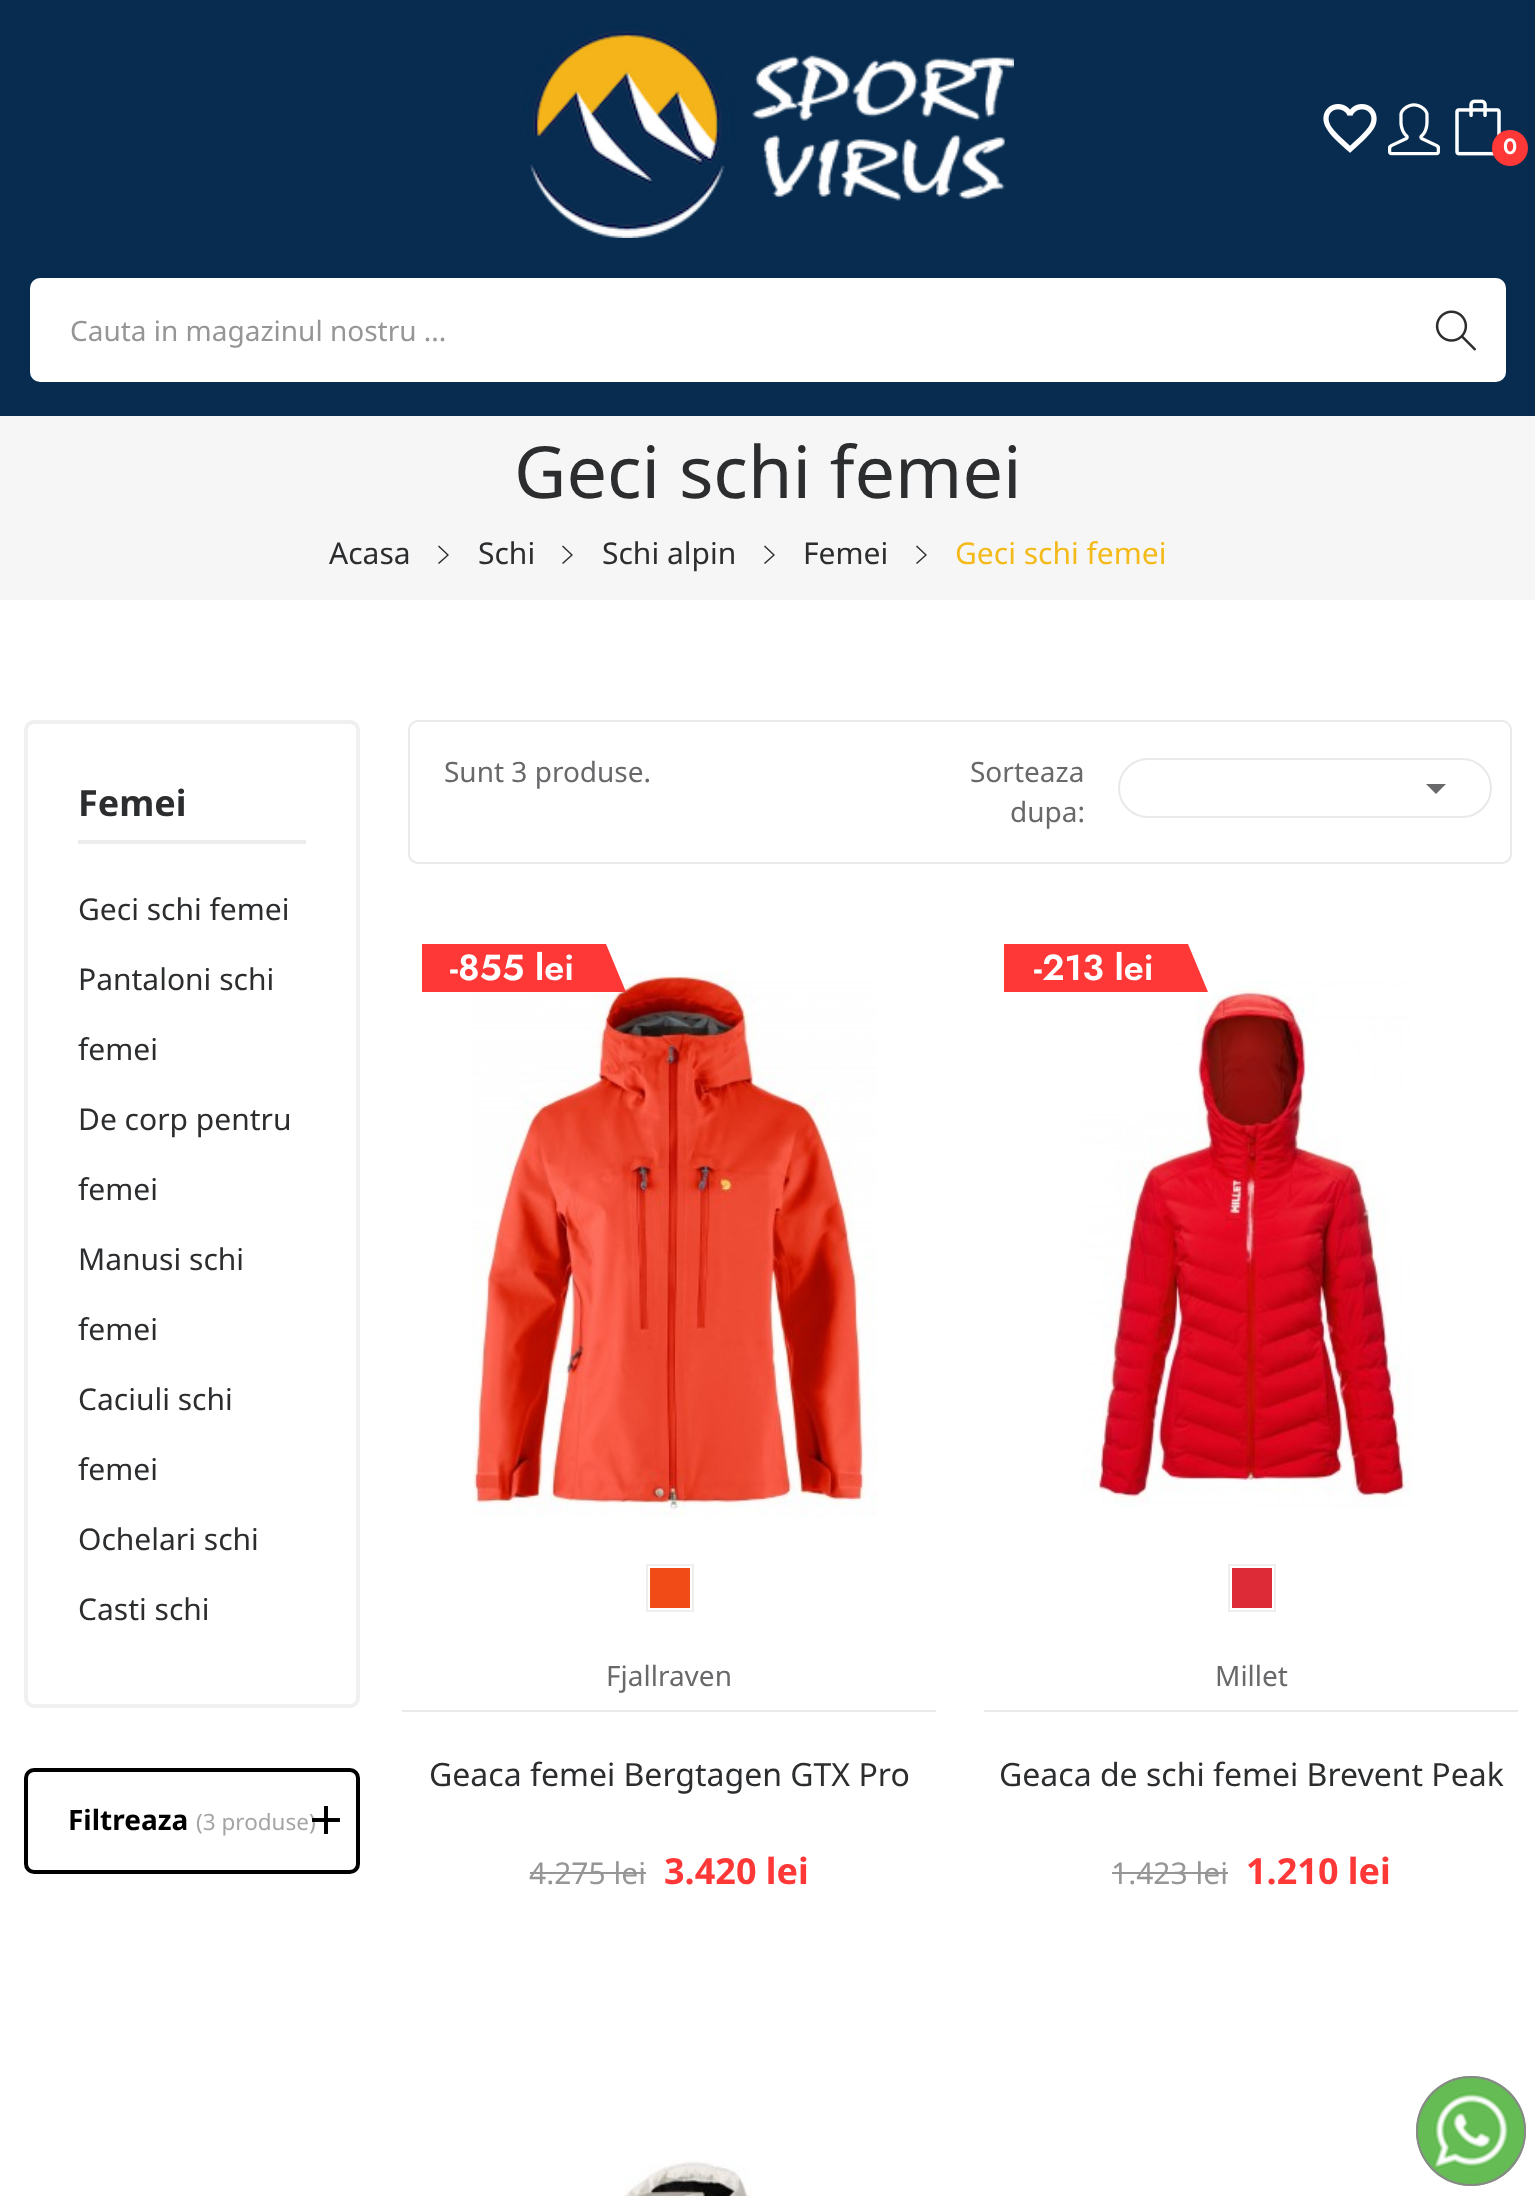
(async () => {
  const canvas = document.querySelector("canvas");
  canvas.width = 1535;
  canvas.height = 2196;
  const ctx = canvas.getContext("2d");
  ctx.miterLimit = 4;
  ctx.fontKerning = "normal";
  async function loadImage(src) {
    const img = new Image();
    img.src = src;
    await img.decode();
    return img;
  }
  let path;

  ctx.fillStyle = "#ffffff";
  ctx.fillRect(0, 0, 1535, 2196);
  ctx.fillStyle = "#072c50";
  ctx.fillRect(0, 0, 1535, 416);
  ctx.drawImage(await loadImage("img/1.png"), 524, 22, 490, 216);
  ctx.drawImage(await loadImage("img/2.png"), 1323, 104, 54, 49);
  ctx.drawImage(await loadImage("img/3.png"), 1388, 103, 52, 53);
  ctx.drawImage(await loadImage("img/4.png"), 1455, 99, 46, 57);
  ctx.fillStyle = "#fe3737";
  ctx.beginPath();
  ctx.arc(1510, 148, 18, 0, Math.PI * 2);
  ctx.fill();
  ctx.fillStyle = "#ffffff";
  ctx.beginPath();
  ctx.roundRect(30, 278, 1476, 104, 10);
  ctx.fill();
  ctx.drawImage(await loadImage("img/5.png"), 1435, 310, 41, 41);
  ctx.fillStyle = "#f6f6f6";
  ctx.fillRect(0, 416, 1535, 184);
  ctx.fillStyle = "#2b2d2f";
  path = new Path2D("M438 546.5L439 545.5L449 555L439 564L438 563L447 555Z");
  ctx.fill(path);
  path = new Path2D("M562 546.5L563 545.5L573 555L563 564L562 563L571 555Z");
  ctx.fill(path);
  path = new Path2D("M764 546.5L765 545.5L775 555L765 564L764 563L773 555Z");
  ctx.fill(path);
  path = new Path2D("M916 546.5L917 545.5L927 555L917 564L916 563L925 555Z");
  ctx.fill(path);
  ctx.beginPath();
  ctx.roundRect(26, 722, 332, 984, 8);
  ctx.strokeStyle = "#f0f0f0";
  ctx.lineWidth = 4;
  ctx.stroke();
  ctx.fillStyle = "#ececec";
  ctx.fillRect(78, 840, 228, 4);
  ctx.beginPath();
  ctx.roundRect(26, 1770, 332, 102, 8);
  ctx.strokeStyle = "#000000";
  ctx.stroke();
  ctx.beginPath();
  ctx.roundRect(409, 721, 1102, 142, 9);
  ctx.strokeStyle = "#e9e9e9";
  ctx.lineWidth = 2;
  ctx.stroke();
  ctx.beginPath();
  ctx.roundRect(1119, 759, 372, 58, 29);
  ctx.stroke();
  ctx.fillStyle = "#69696c";
  path = new Path2D("M1426 784H1446L1436 794Z");
  ctx.fill(path);
  ctx.drawImage(await loadImage("img/7.png"), 472, 971, 405, 546);
  ctx.fillStyle = "#fe3737";
  ctx.fillRect(422, 944, 178, 48);
  path = new Path2D("M580 944H606L626 992H600Z");
  ctx.fill(path);
  ctx.strokeStyle = "#eeeeee";
  ctx.strokeRect(647, 1565, 46, 46);
  for (const [x, y, w, h, color] of [
    [650, 1568, 40, 40, "#f14b17"],
    [402, 1710, 534, 2, "#e9e9e9"],
    [530, 1872, 116, 2, "#969696"],
  ]) {
    ctx.fillStyle = color;
    ctx.fillRect(x, y, w, h);
  }
  ctx.drawImage(await loadImage("img/8.png"), 1082, 981, 330, 527);
  ctx.fillStyle = "#fe3737";
  ctx.fillRect(1004, 944, 178, 48);
  path = new Path2D("M1162 944H1188L1208 992H1182Z");
  ctx.fill(path);
  ctx.strokeRect(1229, 1565, 46, 46);
  for (const [x, y, w, h, color] of [
    [1232, 1568, 40, 40, "#dd2b37"],
    [984, 1710, 534, 2, "#e9e9e9"],
    [1112, 1872, 116, 2, "#969696"],
  ]) {
    ctx.fillStyle = color;
    ctx.fillRect(x, y, w, h);
  }
  ctx.drawImage(await loadImage("img/9.png"), 623, 2160, 129, 36);
  ctx.fillStyle = "#65bc54";
  ctx.beginPath();
  ctx.arc(1471, 2131, 55, 0, Math.PI * 2);
  ctx.fill();
  ctx.drawImage(await loadImage("img/10.png"), 1426, 2086, 90, 90);
  ctx.beginPath();
  ctx.arc(1471, 2131, 54, 0, Math.PI * 2);
  ctx.strokeStyle = "#888888";
  ctx.stroke();
  ctx.font = "600 22px Jost";
  ctx.fillStyle = "#ffffff";
  ctx.fillText("0", 1503, 154);
  ctx.font = "28px Noto Sans";
  ctx.fillStyle = "#969696";
  ctx.fillText("Cauta in magazinul nostru ...", 70, 341);
  ctx.font = "72px Noto Sans";
  ctx.fillStyle = "#2b2d2f";
  ctx.fillText("Geci schi femei", 514, 498);
  ctx.font = "30px Noto Sans";
  for (const [text, x, y] of [
    ["Acasa", 329, 564],
    ["Schi", 478, 564],
    ["Schi alpin", 602, 564],
    ["Femei", 803, 564],
  ]) {
    ctx.fillText(text, x, y);
  }
  ctx.fillStyle = "#f4ba1a";
  ctx.fillText("Geci schi femei", 955, 564);
  ctx.font = "bold 36px Noto Sans";
  ctx.fillStyle = "#2b2d2f";
  ctx.fillText("Femei", 78, 816);
  ctx.font = "30px Noto Sans";
  for (const [text, x, y] of [
    ["Geci schi femei", 78, 920],
    ["Pantaloni schi", 78, 990],
    ["femei", 78, 1060],
    ["De corp pentru", 78, 1130],
    ["femei", 78, 1200],
    ["Manusi schi", 78, 1270],
    ["femei", 78, 1340],
    ["Caciuli schi", 78, 1410],
    ["femei", 78, 1480],
    ["Ochelari schi", 78, 1550],
    ["Casti schi", 78, 1620],
  ]) {
    ctx.fillText(text, x, y);
  }
  ctx.font = "bold 28px Noto Sans";
  ctx.fillStyle = "#000000";
  ctx.fillText("Filtreaza", 68, 1830);
  ctx.font = "22.5px Noto Sans";
  ctx.fillStyle = "#a5a5a7";
  ctx.fillText("(3 produse)", 196, 1830);
  ctx.drawImage(await loadImage("img/6.png"), 312, 1806, 28, 28);
  ctx.font = "28px Noto Sans";
  ctx.fillStyle = "#69696c";
  for (const [text, x, y] of [
    ["Sunt 3 produse.", 444, 782],
    ["Sorteaza", 970, 782],
    ["dupa:", 1010, 822],
  ]) {
    ctx.fillText(text, x, y);
  }
  ctx.font = "600 36px Jost";
  ctx.fillStyle = "#ffffff";
  ctx.fillText("-855 lei", 450, 980);
  ctx.font = "28px Noto Sans";
  ctx.fillStyle = "#69696c";
  ctx.fillText("Fjallraven", 606, 1686);
  ctx.font = "32px Noto Sans";
  ctx.fillStyle = "#2b2d2f";
  ctx.fillText("Geaca femei Bergtagen GTX Pro", 429, 1786);
  ctx.font = "30px Noto Sans";
  ctx.fillStyle = "#969696";
  ctx.fillText("4.275 lei", 529, 1884);
  ctx.font = "bold 36px Noto Sans";
  ctx.fillStyle = "#fe3737";
  ctx.fillText("3.420 lei", 664, 1884);
  ctx.font = "600 36px Jost";
  ctx.fillStyle = "#ffffff";
  ctx.fillText("-213 lei", 1034, 980);
  ctx.font = "28px Noto Sans";
  ctx.fillStyle = "#69696c";
  ctx.fillText("Millet", 1215, 1686);
  ctx.font = "32px Noto Sans";
  ctx.fillStyle = "#2b2d2f";
  ctx.fillText("Geaca de schi femei Brevent Peak", 999, 1786);
  ctx.font = "30px Noto Sans";
  ctx.fillStyle = "#969696";
  ctx.fillText("1.423 lei", 1111, 1884);
  ctx.font = "bold 36px Noto Sans";
  ctx.fillStyle = "#fe3737";
  ctx.fillText("1.210 lei", 1246, 1884);
})();
